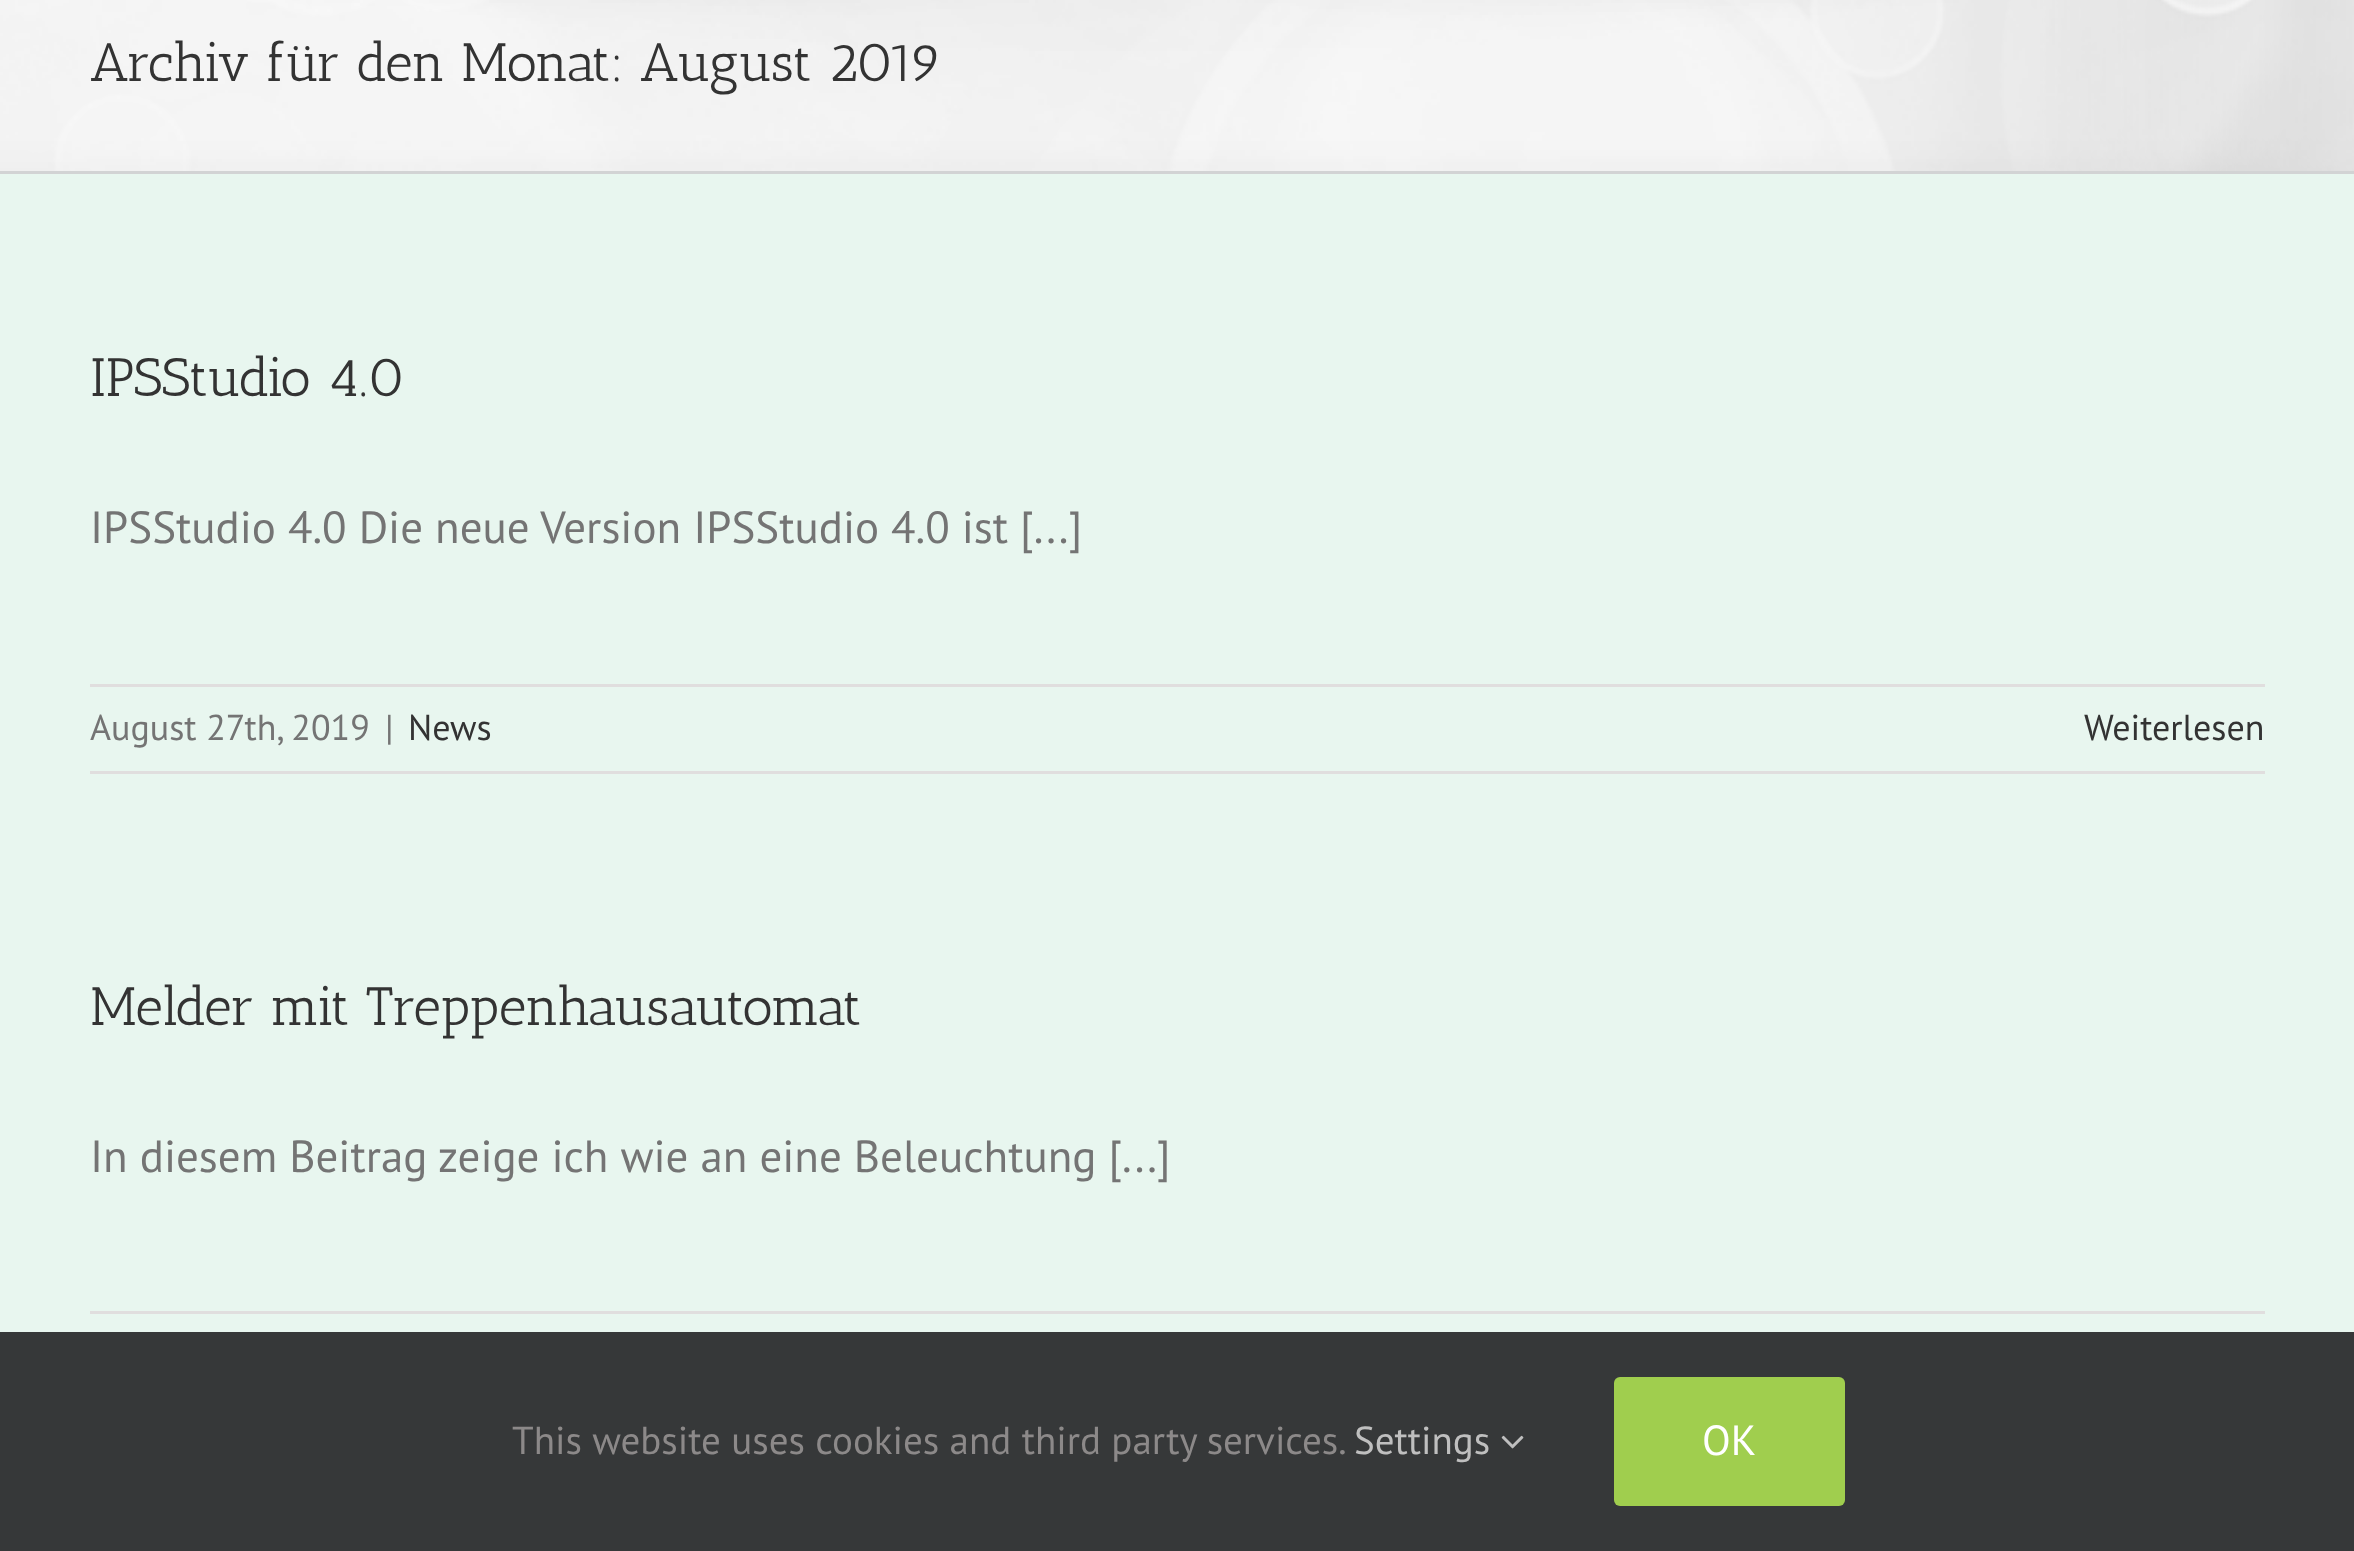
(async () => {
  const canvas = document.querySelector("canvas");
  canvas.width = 2354;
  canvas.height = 1551;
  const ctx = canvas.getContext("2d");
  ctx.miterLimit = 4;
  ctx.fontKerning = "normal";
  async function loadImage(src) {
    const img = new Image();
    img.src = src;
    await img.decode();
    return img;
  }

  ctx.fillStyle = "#e8f6ef";
  ctx.fillRect(0, 0, 2354, 1551);
  ctx.fillStyle = "#f6f6f6";
  ctx.fillRect(0, 0, 2354, 171);
  ctx.drawImage(await loadImage("img/1.png"), 0, 0, 2354, 171);
  for (const [x, y, w, h, color] of [
    [0, 171, 2354, 3, "#d2d3d4"],
    [90, 684, 2175, 3, "#e0dede"],
    [90, 771, 2175, 3, "#e0dede"],
    [90, 1311, 2175, 3, "#e0dede"],
    [0, 1332, 2354, 219, "#363839"],
  ]) {
    ctx.fillStyle = color;
    ctx.fillRect(x, y, w, h);
  }
  ctx.drawImage(await loadImage("img/2.png"), 1501, 1435, 23, 14);
  ctx.fillStyle = "#a0ce4e";
  ctx.beginPath();
  ctx.roundRect(1614, 1377, 231, 129, 6);
  ctx.fill();
  ctx.font = "54px Antic Slab";
  ctx.fillStyle = "#333333";
  ctx.fillText("Archiv für den Monat: August 2019", 90, 81);
  ctx.fillText("IPSStudio 4.0", 90, 396);
  ctx.font = "45px PT Sans";
  ctx.fillStyle = "#747474";
  ctx.fillText("IPSStudio 4.0 Die neue Version IPSStudio 4.0 ist [...]", 90, 543);
  ctx.font = "36px PT Sans";
  ctx.fillText("August 27th, 2019", 90, 740);
  ctx.fillText("|", 385, 740);
  ctx.fillStyle = "#333333";
  ctx.fillText("News", 408, 740);
  ctx.fillText("Weiterlesen", 2084, 740);
  ctx.font = "54px Antic Slab";
  ctx.fillText("Melder mit Treppenhausautomat", 90, 1025);
  ctx.font = "45px PT Sans";
  ctx.fillStyle = "#747474";
  ctx.fillText("In diesem Beitrag zeige ich wie an eine Beleuchtung [...]", 90, 1172);
  ctx.font = "39px PT Sans";
  ctx.fillStyle = "#8c8989";
  ctx.fillText("This website uses cookies and third party services.", 512, 1454);
  ctx.fillStyle = "#bfbfbf";
  ctx.fillText("Settings", 1354, 1454);
  ctx.font = "42px PT Sans";
  ctx.fillStyle = "#ffffff";
  ctx.fillText("OK", 1702, 1455);
})();
